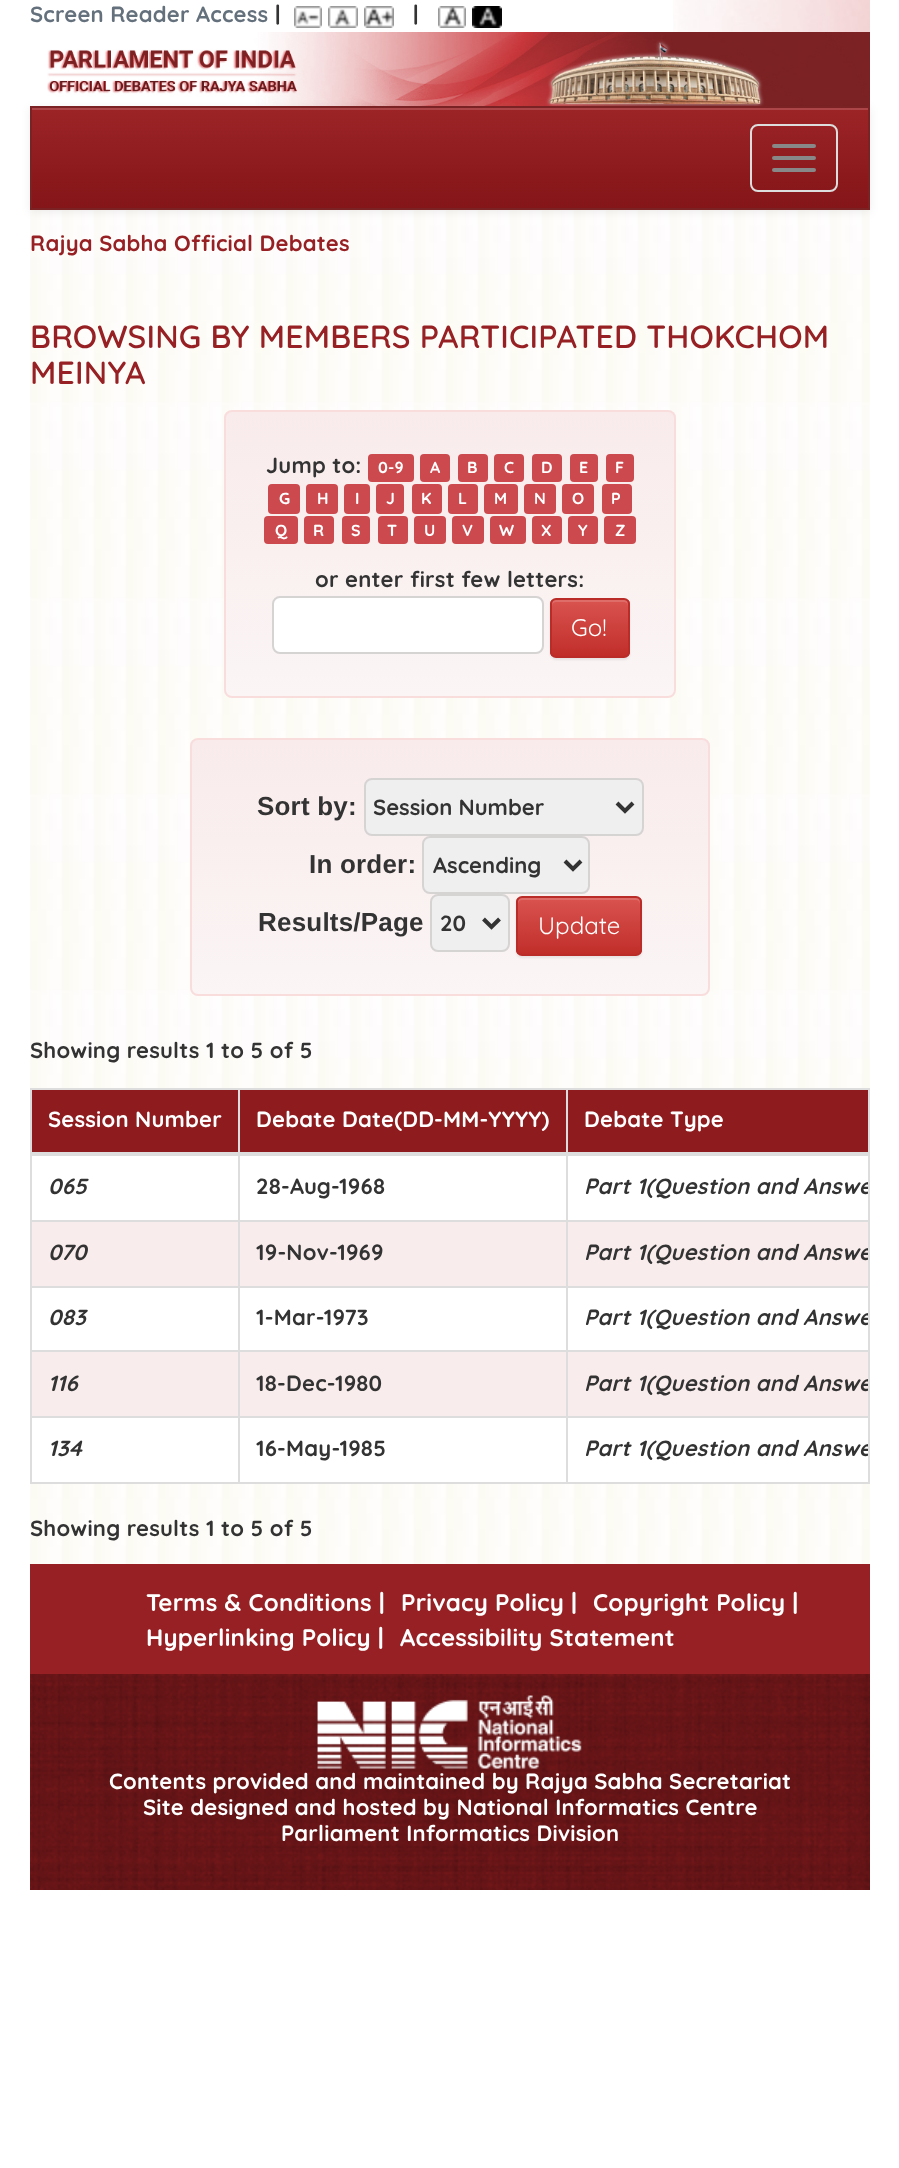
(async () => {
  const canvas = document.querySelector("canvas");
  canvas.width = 899;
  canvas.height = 2168;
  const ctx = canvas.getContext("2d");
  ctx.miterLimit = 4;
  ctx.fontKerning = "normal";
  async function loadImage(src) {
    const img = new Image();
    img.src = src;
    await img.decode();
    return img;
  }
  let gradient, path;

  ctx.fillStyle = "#ffffff";
  ctx.fillRect(0, 0, 899, 2168);
  ctx.drawImage(await loadImage("img/1.png"), 673, 0, 197, 32);
  ctx.drawImage(await loadImage("img/2.png"), 294, 6, 28, 22);
  ctx.drawImage(await loadImage("img/3.png"), 328, 6, 30, 22);
  ctx.drawImage(await loadImage("img/4.png"), 364, 6, 30, 22);
  ctx.drawImage(await loadImage("img/5.png"), 438, 6, 28, 22);
  ctx.drawImage(await loadImage("img/6.png"), 472, 6, 30, 22);
  ctx.drawImage(await loadImage("img/7.png"), 47, 32, 823, 74);
  ctx.drawImage(await loadImage("img/8.png"), 30, 210, 840, 1354);
  ctx.fillStyle = "rgba(0, 0, 0, 0.07)";
  ctx.filter = "blur(5px)";
  ctx.beginPath();
  ctx.rect(30, 108, 840, 104);
  ctx.fill();
  ctx.filter = "none";
  gradient = ctx.createLinearGradient(450, 108, 450, 208);
  gradient.addColorStop(0, "#9c2427");
  gradient.addColorStop(1, "#841518");
  ctx.fillStyle = gradient;
  ctx.fillRect(32, 110, 836, 98);
  ctx.fillStyle = "#ab4547";
  ctx.fillRect(32, 108, 836, 2);
  ctx.strokeStyle = "#7b2224";
  ctx.lineWidth = 2;
  ctx.strokeRect(31, 107, 838, 102);
  ctx.beginPath();
  ctx.roundRect(751, 125, 86, 66, 7);
  ctx.strokeStyle = "#dddddd";
  ctx.stroke();
  ctx.fillStyle = "#888888";
  ctx.beginPath();
  ctx.roundRect(772, 144, 44, 4, 2);
  ctx.fill();
  ctx.beginPath();
  ctx.roundRect(772, 156, 44, 4, 2);
  ctx.fill();
  ctx.beginPath();
  ctx.roundRect(772, 168, 44, 4, 2);
  ctx.fill();
  ctx.save();
  ctx.beginPath();
  ctx.roundRect(224, 410, 452, 288, 8);
  ctx.clip();
  gradient = ctx.createLinearGradient(450, 412, 450, 696);
  gradient.addColorStop(0, "#f9ebeb");
  gradient.addColorStop(1, "#fbf5f5");
  ctx.fillStyle = gradient;
  ctx.fillRect(224, 412, 452, 284);
  ctx.restore();
  ctx.beginPath();
  ctx.roundRect(225, 411, 450, 286, 7);
  ctx.strokeStyle = "#f9dddd";
  ctx.stroke();
  ctx.fillStyle = "#cc494e";
  ctx.beginPath();
  ctx.roundRect(368, 454, 46, 28, 4);
  ctx.fill();
  ctx.beginPath();
  ctx.roundRect(420, 454, 30, 28, 4);
  ctx.fill();
  ctx.beginPath();
  ctx.roundRect(458, 454, 30, 28, 4);
  ctx.fill();
  ctx.beginPath();
  ctx.roundRect(494, 454, 30, 28, 4);
  ctx.fill();
  ctx.beginPath();
  ctx.roundRect(532, 454, 30, 28, 4);
  ctx.fill();
  ctx.beginPath();
  ctx.roundRect(570, 454, 28, 28, 4);
  ctx.fill();
  ctx.beginPath();
  ctx.roundRect(606, 454, 28, 28, 4);
  ctx.fill();
  ctx.beginPath();
  ctx.roundRect(268, 484, 32, 30, 4);
  ctx.fill();
  ctx.beginPath();
  ctx.roundRect(306, 484, 32, 30, 4);
  ctx.fill();
  ctx.beginPath();
  ctx.roundRect(344, 484, 26, 30, 4);
  ctx.fill();
  ctx.beginPath();
  ctx.roundRect(376, 484, 28, 30, 4);
  ctx.fill();
  ctx.beginPath();
  ctx.roundRect(412, 484, 30, 30, 4);
  ctx.fill();
  ctx.beginPath();
  ctx.roundRect(448, 484, 30, 30, 4);
  ctx.fill();
  ctx.beginPath();
  ctx.roundRect(484, 484, 34, 30, 4);
  ctx.fill();
  ctx.beginPath();
  ctx.roundRect(524, 484, 32, 30, 4);
  ctx.fill();
  ctx.beginPath();
  ctx.roundRect(562, 484, 32, 30, 4);
  ctx.fill();
  ctx.beginPath();
  ctx.roundRect(602, 484, 30, 30, 4);
  ctx.fill();
  ctx.beginPath();
  ctx.roundRect(264, 516, 34, 28, 4);
  ctx.fill();
  ctx.beginPath();
  ctx.roundRect(304, 516, 30, 28, 4);
  ctx.fill();
  ctx.beginPath();
  ctx.roundRect(342, 516, 28, 28, 4);
  ctx.fill();
  ctx.beginPath();
  ctx.roundRect(378, 516, 30, 28, 4);
  ctx.fill();
  ctx.beginPath();
  ctx.roundRect(414, 516, 32, 28, 4);
  ctx.fill();
  ctx.beginPath();
  ctx.roundRect(452, 516, 32, 28, 4);
  ctx.fill();
  ctx.beginPath();
  ctx.roundRect(490, 516, 36, 28, 4);
  ctx.fill();
  ctx.beginPath();
  ctx.roundRect(532, 516, 30, 28, 4);
  ctx.fill();
  ctx.beginPath();
  ctx.roundRect(568, 516, 30, 28, 4);
  ctx.fill();
  ctx.beginPath();
  ctx.roundRect(604, 516, 32, 28, 4);
  ctx.fill();
  ctx.fillStyle = "#ffffff";
  ctx.beginPath();
  ctx.roundRect(273, 597, 270, 56, 7);
  ctx.fill();
  ctx.strokeStyle = "#d6d3d3";
  ctx.stroke();
  ctx.fillStyle = "rgba(0, 0, 0, 0.07)";
  ctx.filter = "blur(1px)";
  ctx.beginPath();
  ctx.roundRect(550, 600, 80, 60, 6);
  ctx.fill();
  ctx.filter = "none";
  ctx.save();
  ctx.beginPath();
  ctx.roundRect(550, 598, 80, 60, 6);
  ctx.clip();
  gradient = ctx.createLinearGradient(590, 600, 590, 656);
  gradient.addColorStop(0, "#d9534f");
  gradient.addColorStop(1, "#c12e2a");
  ctx.fillStyle = gradient;
  ctx.fillRect(550, 600, 80, 56);
  ctx.restore();
  ctx.fillStyle = "#de6c69";
  path = new Path2D("M556 602H624C626 602 628 604 628 606C628 597 621 600 613 600H567C559 600 552 597 552 606C552 604 554 602 556 602Z");
  ctx.fill(path);
  ctx.beginPath();
  ctx.roundRect(551, 599, 78, 58, 5);
  ctx.strokeStyle = "#b92c28";
  ctx.stroke();
  ctx.save();
  ctx.beginPath();
  ctx.roundRect(190, 738, 520, 258, 8);
  ctx.clip();
  gradient = ctx.createLinearGradient(450, 740, 450, 994);
  gradient.addColorStop(0, "#f9ebeb");
  gradient.addColorStop(1, "#fbf5f5");
  ctx.fillStyle = gradient;
  ctx.fillRect(190, 740, 520, 254);
  ctx.restore();
  ctx.beginPath();
  ctx.roundRect(191, 739, 518, 256, 7);
  ctx.strokeStyle = "#f9dddd";
  ctx.stroke();
  ctx.fillStyle = "#efefef";
  ctx.beginPath();
  ctx.roundRect(365, 779, 278, 56, 7);
  ctx.fill();
  ctx.strokeStyle = "#d6d3d3";
  ctx.stroke();
  path = new Path2D("M617 803L625 811L633 803");
  ctx.strokeStyle = "#333333";
  ctx.lineWidth = 4;
  ctx.stroke(path);
  ctx.beginPath();
  ctx.roundRect(423, 837, 166, 56, 7);
  ctx.fill();
  ctx.strokeStyle = "#d6d3d3";
  ctx.lineWidth = 2;
  ctx.stroke();
  path = new Path2D("M565 861L573 869L581 861");
  ctx.strokeStyle = "#333333";
  ctx.lineWidth = 4;
  ctx.stroke(path);
  ctx.beginPath();
  ctx.roundRect(431, 895, 78, 56, 7);
  ctx.fill();
  ctx.strokeStyle = "#d6d3d3";
  ctx.lineWidth = 2;
  ctx.stroke();
  path = new Path2D("M483.5 919L491.5 927L499.5 919");
  ctx.strokeStyle = "#333333";
  ctx.lineWidth = 4;
  ctx.stroke(path);
  ctx.fillStyle = "rgba(0, 0, 0, 0.07)";
  ctx.filter = "blur(1px)";
  ctx.beginPath();
  ctx.roundRect(516, 898, 126, 60, 6);
  ctx.fill();
  ctx.filter = "none";
  ctx.save();
  ctx.beginPath();
  ctx.roundRect(516, 896, 126, 60, 6);
  ctx.clip();
  gradient = ctx.createLinearGradient(579, 898, 579, 954);
  gradient.addColorStop(0, "#d9534f");
  gradient.addColorStop(1, "#c12e2a");
  ctx.fillStyle = gradient;
  ctx.fillRect(516, 898, 126, 56);
  ctx.restore();
  ctx.fillStyle = "#de6c69";
  path = new Path2D("M522 900H636C638 900 640 902 640 904V902C640 900 638 898 636 898H522C520 898 518 900 518 902V904C518 902 520 900 522 900Z");
  ctx.fill(path);
  ctx.beginPath();
  ctx.roundRect(517, 897, 124, 58, 5);
  ctx.strokeStyle = "#b92c28";
  ctx.lineWidth = 2;
  ctx.stroke();
  ctx.strokeStyle = "#dddddd";
  ctx.strokeRect(31, 1089, 838, 394);
  for (const [x, y, w, h, color] of [
    [32, 1090, 836, 62, "#8e1b1e"],
    [32, 1156, 836, 64, "#ffffff"],
    [566, 1220, 302, 2, "#dddddd"],
    [32, 1222, 836, 64, "#f9ecec"],
    [566, 1286, 302, 2, "#dddddd"],
    [32, 1288, 836, 62, "#ffffff"],
    [566, 1350, 302, 2, "#dddddd"],
    [32, 1352, 836, 64, "#f9ecec"],
    [566, 1416, 302, 2, "#dddddd"],
    [32, 1418, 836, 64, "#ffffff"],
    [566, 1416, 2, 66, "#dddddd"],
    [238, 1416, 330, 2, "#dddddd"],
    [566, 1350, 2, 68, "#dddddd"],
    [238, 1350, 330, 2, "#dddddd"],
    [566, 1286, 2, 66, "#dddddd"],
    [238, 1286, 330, 2, "#dddddd"],
    [566, 1220, 2, 68, "#dddddd"],
    [238, 1220, 330, 2, "#dddddd"],
    [238, 1416, 2, 66, "#dddddd"],
    [32, 1416, 208, 2, "#dddddd"],
    [238, 1350, 2, 68, "#dddddd"],
    [32, 1350, 208, 2, "#dddddd"],
    [238, 1286, 2, 66, "#dddddd"],
    [32, 1286, 208, 2, "#dddddd"],
    [238, 1220, 2, 68, "#dddddd"],
    [32, 1220, 208, 2, "#dddddd"],
    [238, 1090, 2, 132, "#dddddd"],
    [566, 1090, 2, 132, "#dddddd"],
    [32, 1152, 836, 4, "#dddddd"],
    [30, 1564, 840, 110, "#962023"],
    [30, 1674, 840, 216, "#931e21"],
  ]) {
    ctx.fillStyle = color;
    ctx.fillRect(x, y, w, h);
  }
  ctx.drawImage(await loadImage("img/9.png"), 30, 1674, 840, 216);
  ctx.drawImage(await loadImage("img/10.png"), 317, 1695, 265, 74);
  ctx.letterSpacing = "0.2px";
  ctx.font = "bold 22px Quicksand";
  ctx.fillStyle = "#64717d";
  ctx.fillText("Screen Reader Access", 30, 22);
  ctx.fillStyle = "#333333";
  ctx.fillText("|", 275, 22);
  ctx.fillText("|", 413, 22);
  ctx.fillStyle = "#962023";
  ctx.fillText("Rajya Sabha Official Debates", 30, 251);
  ctx.font = "600 32px Quicksand";
  ctx.fillText("BROWSING BY MEMBERS PARTICIPATED THOKCHOM", 30, 348);
  ctx.fillText("MEINYA", 30, 384);
  ctx.font = "bold 22px Quicksand";
  ctx.fillStyle = "#333333";
  ctx.fillText("Jump to:", 266, 473);
  ctx.font = "bold 16px Quicksand";
  ctx.fillStyle = "#ffffff";
  for (const [text, x, y] of [
    ["0-9", 378, 473],
    ["A", 430, 473],
    ["B", 467, 473],
    ["C", 504, 473],
    ["D", 541, 473],
    ["E", 579, 473],
    ["F", 615, 473],
    ["G", 279, 504],
    ["H", 317, 504],
    ["I", 355, 504],
    ["J", 386, 504],
    ["K", 421, 504],
    ["L", 458, 504],
    ["M", 494, 504],
    ["N", 534, 504],
    ["O", 572, 504],
    ["P", 611, 504],
    ["Q", 275, 536],
    ["R", 313, 536],
    ["S", 351, 536],
    ["T", 387, 536],
    ["U", 424, 536],
    ["V", 462, 536],
    ["W", 499, 536],
    ["X", 541, 536],
    ["Y", 578, 536],
    ["Z", 615, 536],
  ]) {
    ctx.fillText(text, x, y);
  }
  ctx.font = "bold 22px Quicksand";
  ctx.fillStyle = "#333333";
  ctx.fillText("or enter first few letters:", 315, 587);
  ctx.letterSpacing = "0px";
  ctx.font = "24px Quicksand";
  ctx.fillStyle = "#ffffff";
  ctx.fillText("Go!", 571, 636);
  ctx.letterSpacing = "0.2px";
  ctx.font = "bold 26px Liberation Sans";
  ctx.fillStyle = "#333333";
  ctx.fillText("Sort by:", 257, 815);
  ctx.letterSpacing = "0px";
  ctx.font = "bold 22px Quicksand";
  ctx.fillText("Session Number", 373, 815);
  ctx.letterSpacing = "0.2px";
  ctx.font = "bold 26px Liberation Sans";
  ctx.fillText("In order:", 309, 873);
  ctx.letterSpacing = "0px";
  ctx.font = "bold 22px Quicksand";
  ctx.fillText("Ascending", 433, 873);
  ctx.letterSpacing = "0.2px";
  ctx.font = "bold 26px Liberation Sans";
  ctx.fillText("Results/Page", 258, 931);
  ctx.letterSpacing = "0px";
  ctx.font = "bold 22px Quicksand";
  ctx.fillText("20", 440, 931);
  ctx.font = "24px Quicksand";
  ctx.fillStyle = "#ffffff";
  ctx.fillText("Update", 538, 934);
  ctx.letterSpacing = "0.2px";
  ctx.font = "bold 22px Quicksand";
  ctx.fillStyle = "#333333";
  ctx.fillText("Showing results 1 to 5 of 5", 30, 1058);
  ctx.fillStyle = "#ffffff";
  for (const [text, x, y] of [
    ["Session Number", 48, 1127],
    ["Debate Date(DD-MM-YYYY)", 256, 1127],
    ["Debate Type", 584, 1127],
  ]) {
    ctx.fillText(text, x, y);
  }
  ctx.font = "italic bold 22px Quicksand";
  ctx.fillStyle = "#333333";
  ctx.fillText("065", 48, 1194);
  ctx.font = "bold 22px Quicksand";
  ctx.fillText("28-Aug-1968", 256, 1194);
  ctx.save();
  ctx.beginPath();
  ctx.rect(32, 1090, 836, 392);
  ctx.clip();
  ctx.font = "italic bold 22px Quicksand";
  ctx.fillText("Part 1(Question and Answe", 584, 1194);
  ctx.restore();
  ctx.font = "italic bold 22px Quicksand";
  ctx.fillText("070", 48, 1260);
  ctx.font = "bold 22px Quicksand";
  ctx.fillText("19-Nov-1969", 256, 1260);
  ctx.save();
  ctx.beginPath();
  ctx.rect(32, 1090, 836, 392);
  ctx.clip();
  ctx.font = "italic bold 22px Quicksand";
  ctx.fillText("Part 1(Question and Answe", 584, 1260);
  ctx.restore();
  ctx.font = "italic bold 22px Quicksand";
  ctx.fillText("083", 48, 1325);
  ctx.font = "bold 22px Quicksand";
  ctx.fillText("1-Mar-1973", 256, 1325);
  ctx.save();
  ctx.beginPath();
  ctx.rect(32, 1090, 836, 392);
  ctx.clip();
  ctx.font = "italic bold 22px Quicksand";
  ctx.fillText("Part 1(Question and Answe", 584, 1325);
  ctx.restore();
  ctx.font = "italic bold 22px Quicksand";
  ctx.fillText("116", 48, 1391);
  ctx.font = "bold 22px Quicksand";
  ctx.fillText("18-Dec-1980", 256, 1391);
  ctx.save();
  ctx.beginPath();
  ctx.rect(32, 1090, 836, 392);
  ctx.clip();
  ctx.font = "italic bold 22px Quicksand";
  ctx.fillText("Part 1(Question and Answe", 584, 1391);
  ctx.restore();
  ctx.font = "italic bold 22px Quicksand";
  ctx.fillText("134", 48, 1456);
  ctx.font = "bold 22px Quicksand";
  ctx.fillText("16-May-1985", 256, 1456);
  ctx.save();
  ctx.beginPath();
  ctx.rect(32, 1090, 836, 392);
  ctx.clip();
  ctx.font = "italic bold 22px Quicksand";
  ctx.fillText("Part 1(Question and Answe", 584, 1456);
  ctx.restore();
  ctx.fillText("Showing results 1 to 5 of 5", 30, 1536);
  ctx.font = "bold 24px Quicksand";
  ctx.fillStyle = "#ffffff";
  for (const [text, x, y] of [
    ["Terms & Conditions |", 146, 1611],
    ["Privacy Policy |", 401, 1611],
    ["Copyright Policy |", 593, 1611],
    ["Hyperlinking Policy |", 146, 1646],
    ["Accessibility Statement", 400, 1646],
  ]) {
    ctx.fillText(text, x, y);
  }
  ctx.font = "bold 22px Quicksand";
  for (const [text, x, y] of [
    ["Contents provided and maintained by Rajya Sabha Secretariat", 109, 1789],
    ["Site designed and hosted by National Informatics Centre", 143, 1815],
    ["Parliament Informatics Division", 281, 1841],
  ]) {
    ctx.fillText(text, x, y);
  }
})();
